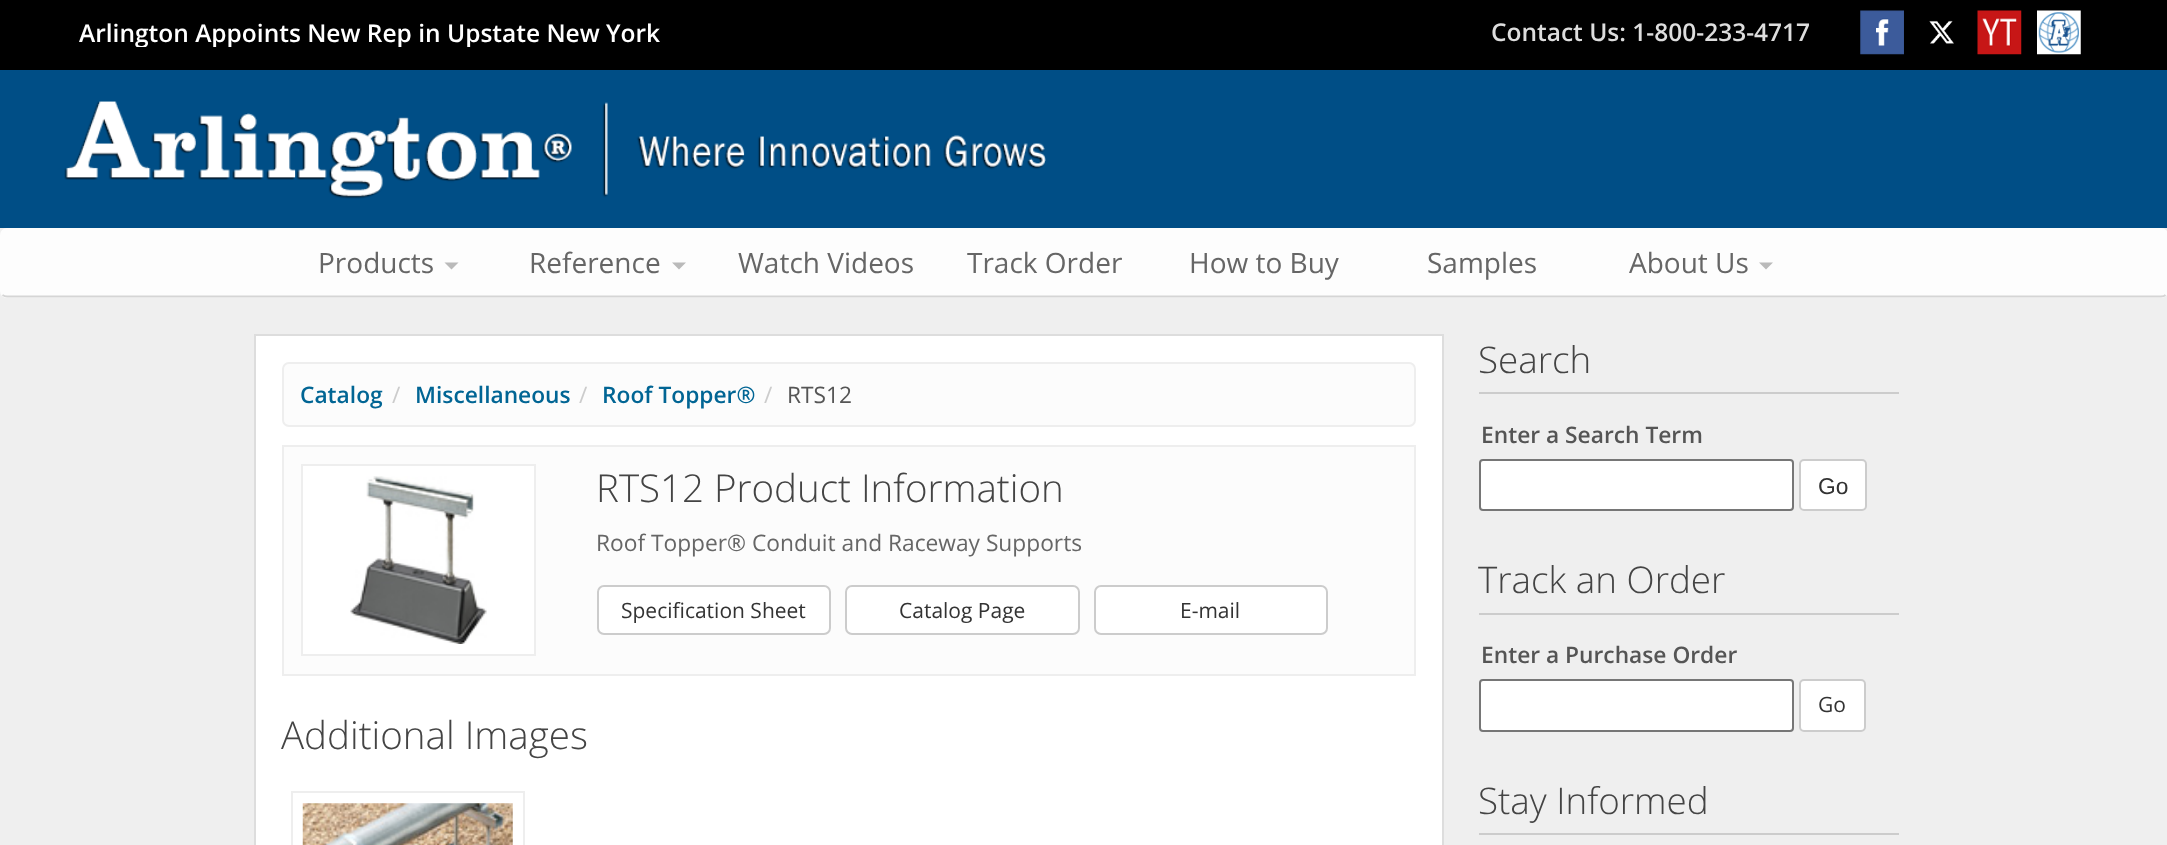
(async () => {
  const canvas = document.querySelector("canvas");
  canvas.width = 2167;
  canvas.height = 845;
  const ctx = canvas.getContext("2d");
  ctx.miterLimit = 4;
  ctx.fontKerning = "normal";
  async function loadImage(src) {
    const img = new Image();
    img.src = src;
    await img.decode();
    return img;
  }
  let path;

  ctx.fillStyle = "#efefef";
  ctx.fillRect(0, 0, 2167, 845);
  ctx.fillStyle = "#000000";
  ctx.fillRect(0, 0, 2167, 70);
  ctx.drawImage(await loadImage("img/1.png"), 1860, 10, 44, 45);
  ctx.drawImage(await loadImage("img/2.png"), 1929, 20, 25, 24);
  ctx.drawImage(await loadImage("img/3.png"), 1977, 10, 45, 45);
  ctx.drawImage(await loadImage("img/4.png"), 2037, 10, 44, 45);
  ctx.fillStyle = "#004e86";
  ctx.fillRect(0, 70, 2167, 158);
  ctx.drawImage(await loadImage("img/5.png"), 64, 101, 982, 98);
  ctx.fillStyle = "#fdfdfd";
  ctx.beginPath();
  ctx.roundRect(0, 228, 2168, 70, 7);
  ctx.fill();
  path = new Path2D("M2165.5 295C2164.5 296 2163 296.5 2161 296.5H7C5.5 296.5 4 296 2.5 295");
  ctx.strokeStyle = "#d5d5d5";
  ctx.lineWidth = 1.8;
  ctx.stroke(path);
  ctx.fillStyle = "#bababa";
  path = new Path2D("M444.5 262.5H458.5L451.5 269.5Z");
  ctx.fill(path);
  path = new Path2D("M672 262.5H686L679 269.5Z");
  ctx.fill(path);
  path = new Path2D("M1759 262.5H1773L1766 269.5Z");
  ctx.fill(path);
  ctx.fillStyle = "#ffffff";
  ctx.beginPath();
  ctx.rect(255, 335, 1188, 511);
  ctx.fill();
  ctx.strokeStyle = "#dddddd";
  ctx.lineWidth = 2;
  ctx.stroke();
  ctx.fillStyle = "#fcfcfc";
  ctx.beginPath();
  ctx.roundRect(283, 363, 1132, 63, 6);
  ctx.fill();
  ctx.strokeStyle = "#eeeeee";
  ctx.stroke();
  ctx.beginPath();
  ctx.rect(283, 446, 1132, 229);
  ctx.fill();
  ctx.stroke();
  ctx.fillStyle = "#ffffff";
  ctx.beginPath();
  ctx.rect(302, 465, 233, 190);
  ctx.fill();
  ctx.stroke();
  ctx.drawImage(await loadImage("img/6.png"), 350, 476, 137, 168);
  ctx.beginPath();
  ctx.roundRect(598, 586, 232, 48, 6);
  ctx.fill();
  ctx.strokeStyle = "#cccccc";
  ctx.stroke();
  ctx.beginPath();
  ctx.roundRect(846, 586, 233, 48, 6);
  ctx.fill();
  ctx.stroke();
  ctx.beginPath();
  ctx.roundRect(1095, 586, 232, 48, 6);
  ctx.fill();
  ctx.stroke();
  ctx.strokeStyle = "#eeeeee";
  ctx.strokeRect(292, 792, 232, 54);
  ctx.drawImage(await loadImage("img/7.png"), 302, 803, 211, 42);
  ctx.fillStyle = "#cccccc";
  ctx.fillRect(1479, 392, 420, 2);
  ctx.fillStyle = "#ffffff";
  ctx.beginPath();
  ctx.roundRect(1480, 460, 313, 50, 3);
  ctx.fill();
  ctx.strokeStyle = "#767676";
  ctx.stroke();
  ctx.beginPath();
  ctx.roundRect(1800, 460, 66, 50, 4);
  ctx.fill();
  ctx.strokeStyle = "#cccccc";
  ctx.stroke();
  ctx.fillStyle = "#cccccc";
  ctx.fillRect(1479, 613, 420, 2);
  ctx.fillStyle = "#ffffff";
  ctx.beginPath();
  ctx.roundRect(1480, 680, 313, 51, 3);
  ctx.fill();
  ctx.strokeStyle = "#767676";
  ctx.stroke();
  ctx.beginPath();
  ctx.roundRect(1800, 680, 65, 51, 4);
  ctx.fill();
  ctx.strokeStyle = "#cccccc";
  ctx.stroke();
  ctx.fillStyle = "#cccccc";
  ctx.fillRect(1479, 833, 420, 2);
  ctx.save();
  ctx.beginPath();
  ctx.rect(0, 19, 660, 28);
  ctx.clip();
  ctx.font = "600 24.5px Open Sans";
  ctx.fillStyle = "#ffffff";
  ctx.fillText("Arlington Appoints New Rep in Upstate New York", 79, 42);
  ctx.restore();
  ctx.font = "600 24.5px Open Sans";
  ctx.fillStyle = "#dddddd";
  ctx.fillText("Contact Us: 1-800-233-4717", 1491, 41);
  ctx.font = "28px Open Sans";
  ctx.fillStyle = "#666666";
  for (const [text, x, y] of [
    ["Products", 318, 273],
    ["Reference", 529, 273],
    ["Watch Videos", 738, 273],
    ["Track Order", 967, 273],
    ["How to Buy", 1189, 273],
    ["Samples", 1427, 273],
    ["About Us", 1629, 273],
  ]) {
    ctx.fillText(text, x, y);
  }
  ctx.font = "600 22.75px Open Sans";
  ctx.fillStyle = "#016594";
  ctx.fillText("Catalog", 300, 403);
  ctx.font = "22.75px Open Sans";
  ctx.fillStyle = "#cccccc";
  ctx.fillText("/", 392, 403);
  ctx.font = "600 22.75px Open Sans";
  ctx.fillStyle = "#016594";
  ctx.fillText("Miscellaneous", 415, 403);
  ctx.font = "22.75px Open Sans";
  ctx.fillStyle = "#cccccc";
  ctx.fillText("/", 579, 403);
  ctx.font = "600 22.75px Open Sans";
  ctx.fillStyle = "#016594";
  ctx.fillText("Roof Topper®", 602, 403);
  ctx.font = "22.75px Open Sans";
  ctx.fillStyle = "#cccccc";
  ctx.fillText("/", 764, 403);
  ctx.fillStyle = "#555555";
  ctx.fillText("RTS12", 787, 403);
  ctx.font = "300 38.5px Open Sans";
  ctx.fillStyle = "#444444";
  ctx.fillText("RTS12 Product Information", 596, 502);
  ctx.font = "22.75px Open Sans";
  ctx.fillStyle = "#666666";
  ctx.fillText("Roof Topper® Conduit and Raceway Supports", 596, 551);
  ctx.font = "21px Open Sans";
  ctx.fillStyle = "#333333";
  for (const [text, x, y] of [
    ["Specification Sheet", 621, 618],
    ["Catalog Page", 899, 618],
    ["E-mail", 1180, 618],
  ]) {
    ctx.fillText(text, x, y);
  }
  ctx.font = "300 38.5px Open Sans";
  ctx.fillStyle = "#444444";
  ctx.fillText("Additional Images", 281, 749);
  ctx.font = "300 36.75px Open Sans";
  ctx.fillText("Search", 1478, 373);
  ctx.font = "600 22.75px Open Sans";
  ctx.fillStyle = "#555555";
  ctx.fillText("Enter a Search Term", 1481, 443);
  ctx.font = "22.75px Liberation Sans";
  ctx.fillStyle = "#333333";
  ctx.fillText("Go", 1818, 494);
  ctx.font = "300 36.75px Open Sans";
  ctx.fillStyle = "#444444";
  ctx.fillText("Track an Order", 1478, 593);
  ctx.font = "600 22.75px Open Sans";
  ctx.fillStyle = "#555555";
  ctx.fillText("Enter a Purchase Order", 1481, 663);
  ctx.font = "21px Open Sans";
  ctx.fillStyle = "#333333";
  ctx.fillText("Go", 1818, 712);
  ctx.font = "300 36.75px Open Sans";
  ctx.fillStyle = "#444444";
  ctx.fillText("Stay Informed", 1478, 814);
})();
